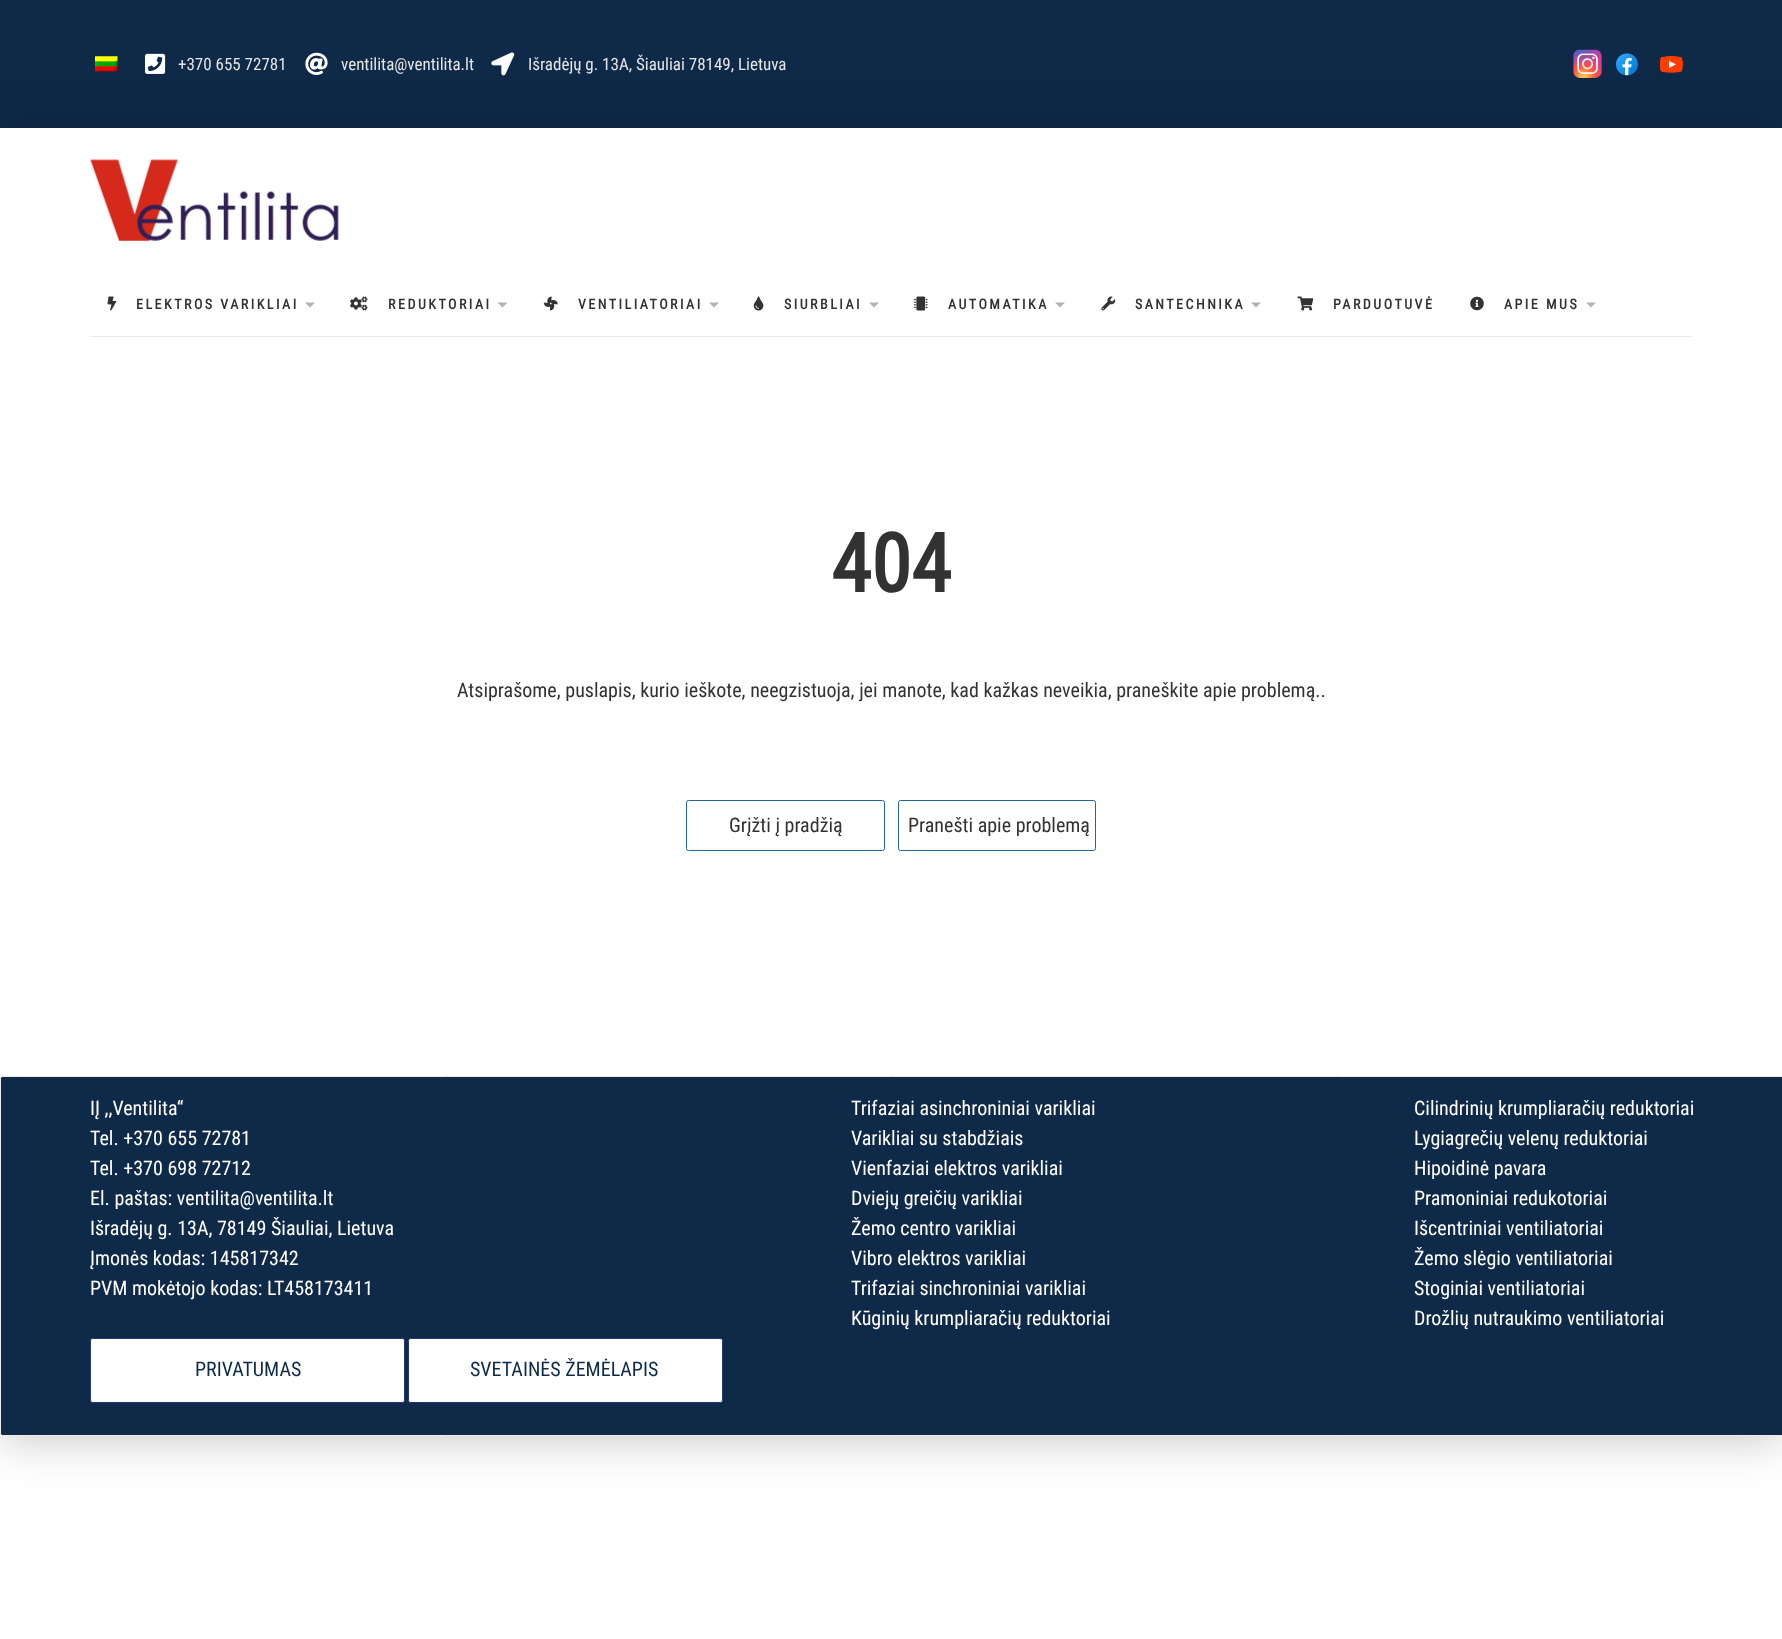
(async () => {
  const canvas = document.querySelector("canvas");
  canvas.width = 1782;
  canvas.height = 1639;
  const ctx = canvas.getContext("2d");
  ctx.miterLimit = 4;
  ctx.fontKerning = "normal";
  async function loadImage(src) {
    const img = new Image();
    img.src = src;
    await img.decode();
    return img;
  }
  let path;

  ctx.fillStyle = "#ffffff";
  ctx.fillRect(0, 0, 1782, 1639);
  ctx.fillStyle = "#0f2a49";
  ctx.fillRect(0, 0, 1782, 128);
  ctx.drawImage(await loadImage("img/1.png"), 95, 56, 23, 16);
  ctx.drawImage(await loadImage("img/2.png"), 145, 53, 21, 21);
  ctx.drawImage(await loadImage("img/3.png"), 305, 52, 23, 23);
  ctx.drawImage(await loadImage("img/4.png"), 491, 52, 24, 24);
  ctx.drawImage(await loadImage("img/5.png"), 1573, 49, 29, 29);
  ctx.drawImage(await loadImage("img/6.png"), 1616, 53, 22, 23);
  ctx.drawImage(await loadImage("img/7.png"), 1660, 56, 23, 17);
  ctx.save();
  path = new Path2D("M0 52H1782V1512H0ZM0 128H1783V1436H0Z");
  ctx.clip(path, "evenodd");
  ctx.fillStyle = "rgba(0, 0, 0, 0.25)";
  ctx.filter = "blur(25px)";
  ctx.beginPath();
  ctx.rect(0, 128, 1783, 1308);
  ctx.fill();
  ctx.filter = "none";
  ctx.restore();
  ctx.drawImage(await loadImage("img/8.png"), 90, 159, 249, 82);
  ctx.fillStyle = "#ececec";
  ctx.fillRect(90, 336, 1603, 1);
  ctx.drawImage(await loadImage("img/9.png"), 107, 296, 10, 15);
  ctx.fillStyle = "#b3b3b3";
  path = new Path2D("M305 302.5H315L310 307.5Z");
  ctx.fill(path);
  ctx.drawImage(await loadImage("img/10.png"), 350, 296, 18, 15);
  path = new Path2D("M497.5 302.5H507.5L502.5 307.5Z");
  ctx.fill(path);
  ctx.drawImage(await loadImage("img/11.png"), 543, 296, 15, 15);
  path = new Path2D("M709 302.5H719L714 307.5Z");
  ctx.fill(path);
  ctx.drawImage(await loadImage("img/12.png"), 753, 296, 11, 15);
  path = new Path2D("M869 302.5H879L874 307.5Z");
  ctx.fill(path);
  ctx.drawImage(await loadImage("img/13.png"), 913, 296, 15, 15);
  path = new Path2D("M1055 302.5H1065L1060 307.5Z");
  ctx.fill(path);
  ctx.drawImage(await loadImage("img/14.png"), 1101, 296, 15, 15);
  path = new Path2D("M1251 302.5H1261L1256 307.5Z");
  ctx.fill(path);
  ctx.drawImage(await loadImage("img/15.png"), 1297, 296, 17, 15);
  ctx.drawImage(await loadImage("img/16.png"), 1470, 296, 14, 15);
  path = new Path2D("M1586 302.5H1596L1591 307.5Z");
  ctx.fill(path);
  ctx.beginPath();
  ctx.roundRect(686.5, 800.5, 198, 50, 2);
  ctx.strokeStyle = "#23679e";
  ctx.stroke();
  ctx.beginPath();
  ctx.roundRect(898.5, 800.5, 197, 50, 2);
  ctx.stroke();
  ctx.fillStyle = "#0f2a49";
  ctx.beginPath();
  ctx.roundRect(0.5, 1076.5, 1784, 359, 2);
  ctx.fill();
  ctx.strokeStyle = "#ececec";
  ctx.stroke();
  ctx.fillStyle = "#ffffff";
  ctx.beginPath();
  ctx.roundRect(90.5, 1338.5, 314, 64, 2);
  ctx.fill();
  ctx.strokeStyle = "#223679";
  ctx.stroke();
  ctx.beginPath();
  ctx.roundRect(408.5, 1338.5, 314, 64, 2);
  ctx.fill();
  ctx.stroke();
  ctx.font = "17px Roboto Condensed";
  ctx.fillStyle = "#e5e5e5";
  for (const [text, x, y] of [
    ["+370 655 72781", 178, 70],
    ["ventilita@ventilita.lt", 341, 70],
    ["Išradėjų g. 13A, Šiauliai 78149, Lietuva", 528, 70],
  ]) {
    ctx.fillText(text, x, y);
  }
  ctx.letterSpacing = "2.5px";
  ctx.font = "bold 14px Roboto Condensed";
  ctx.fillStyle = "#323232";
  for (const [text, x, y] of [
    ["ELEKTROS VARIKLIAI", 136, 309],
    ["REDUKTORIAI", 388, 309],
    ["VENTILIATORIAI", 578, 309],
    ["SIURBLIAI", 784, 309],
    ["AUTOMATIKA", 948, 309],
    ["SANTECHNIKA", 1135, 309],
    ["PARDUOTUVĖ", 1333, 309],
    ["APIE MUS", 1504, 309],
  ]) {
    ctx.fillText(text, x, y);
  }
  ctx.letterSpacing = "0px";
  ctx.font = "bold 81px Roboto Condensed";
  ctx.fillText("404", 831, 592);
  ctx.font = "20px Roboto Condensed";
  for (const [text, x, y] of [
    ["Atsiprašome, puslapis, kurio ieškote, neegzistuoja, jei manote, kad kažkas neveikia, praneškite apie problemą..", 457, 697],
    ["Grįžti į pradžią", 729, 832],
    ["Pranešti apie problemą", 908, 832],
  ]) {
    ctx.fillText(text, x, y);
  }
  ctx.fillStyle = "#ffffff";
  for (const [text, x, y] of [
    ["IĮ ,,Ventilita“", 90, 1115],
    ["Tel. +370 655 72781", 90, 1145],
    ["Tel. +370 698 72712", 90, 1175],
    ["El. paštas: ventilita@ventilita.lt", 90, 1205],
    ["Išradėjų g. 13A, 78149 Šiauliai, Lietuva", 90, 1235],
    ["Įmonės kodas: 145817342", 90, 1265],
    ["PVM mokėtojo kodas: LT458173411", 90, 1295],
  ]) {
    ctx.fillText(text, x, y);
  }
  ctx.fillStyle = "#0f2a49";
  ctx.fillText("PRIVATUMAS", 195, 1376);
  ctx.fillText("SVETAINĖS ŽEMĖLAPIS", 470, 1376);
  ctx.fillStyle = "#ffffff";
  for (const [text, x, y] of [
    ["Trifaziai asinchroniniai varikliai", 851, 1115],
    ["Varikliai su stabdžiais", 851, 1145],
    ["Vienfaziai elektros varikliai", 851, 1175],
    ["Dviejų greičių varikliai", 851, 1205],
    ["Žemo centro varikliai", 851, 1235],
    ["Vibro elektros varikliai", 851, 1265],
    ["Trifaziai sinchroniniai varikliai", 851, 1295],
    ["Kūginių krumpliaračių reduktoriai", 851, 1325],
    ["Cilindrinių krumpliaračių reduktoriai", 1414, 1115],
    ["Lygiagrečių velenų reduktoriai", 1414, 1145],
    ["Hipoidinė pavara", 1414, 1175],
    ["Pramoniniai redukotoriai", 1414, 1205],
    ["Išcentriniai ventiliatoriai", 1414, 1235],
    ["Žemo slėgio ventiliatoriai", 1414, 1265],
    ["Stoginiai ventiliatoriai", 1414, 1295],
    ["Drožlių nutraukimo ventiliatoriai", 1414, 1325],
  ]) {
    ctx.fillText(text, x, y);
  }
})();
